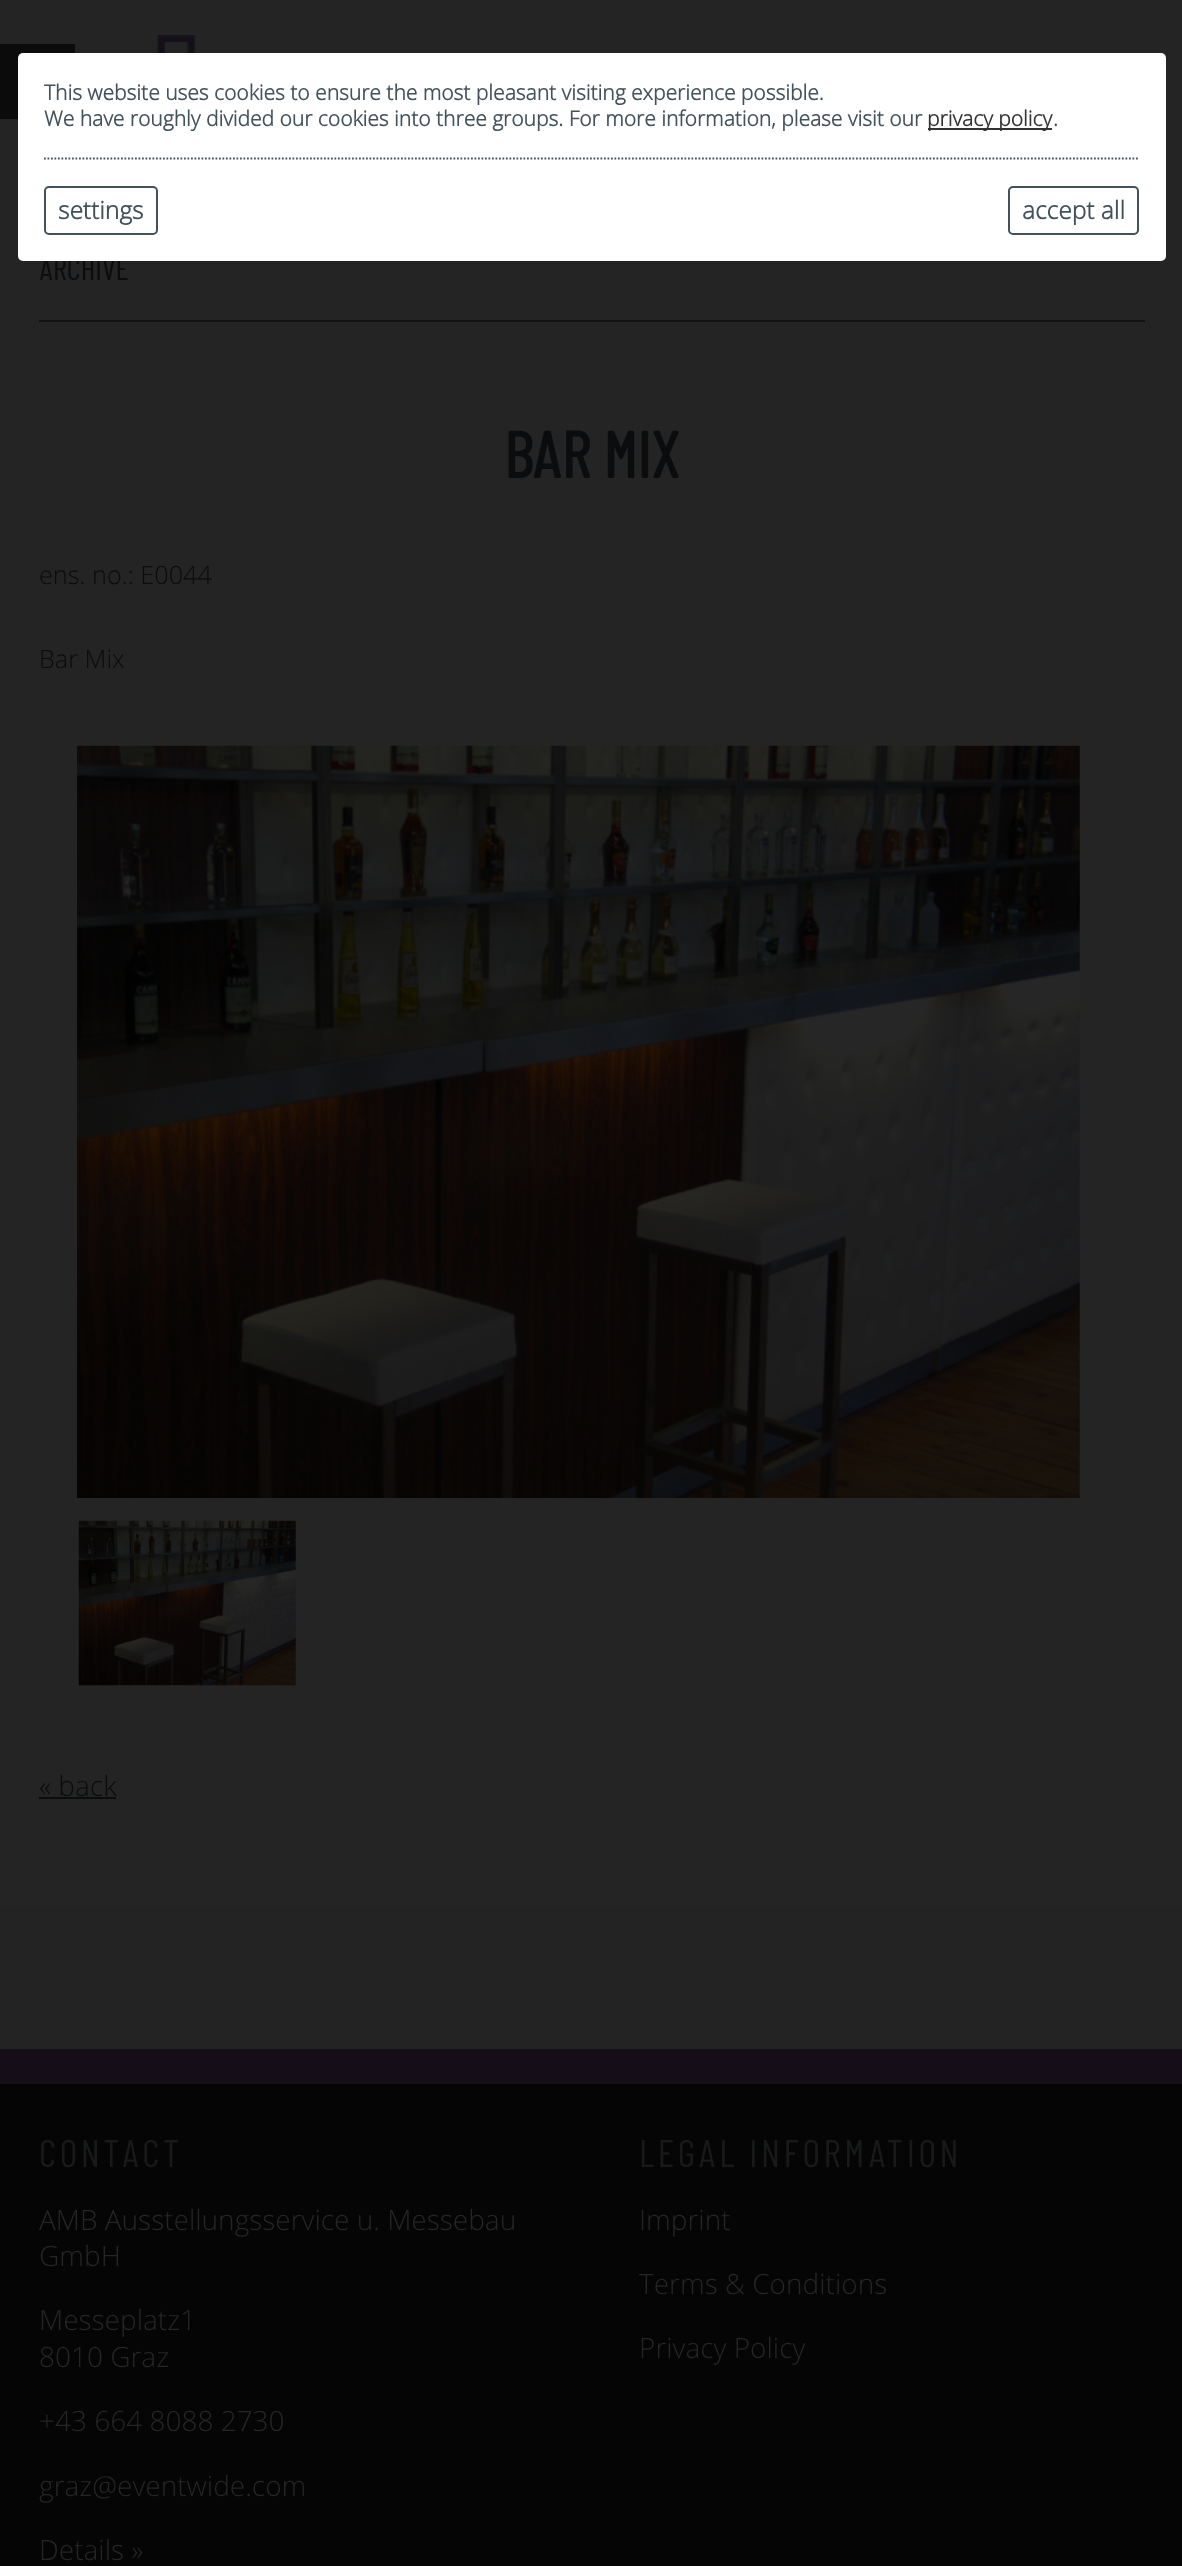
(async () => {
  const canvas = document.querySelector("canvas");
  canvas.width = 1182;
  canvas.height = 2566;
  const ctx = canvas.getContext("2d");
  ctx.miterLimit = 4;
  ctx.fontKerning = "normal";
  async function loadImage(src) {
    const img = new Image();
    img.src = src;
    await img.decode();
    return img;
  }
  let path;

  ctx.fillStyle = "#050506";
  ctx.fillRect(0, 0, 1182, 2566);
  for (const [x, y, w, h, color] of [
    [0, 1909, 1182, 140, "#232323"],
    [0, 0, 1182, 1909, "#242424"],
    [0, 44, 75, 75, "#0b0b0b"],
  ]) {
    ctx.fillStyle = color;
    ctx.fillRect(x, y, w, h);
  }
  ctx.drawImage(await loadImage("img/1.png"), 157, 35, 40, 18);
  ctx.fillStyle = "#131314";
  ctx.fillRect(39, 320, 1106, 2);
  ctx.drawImage(await loadImage("img/2.png"), 77, 745, 1003, 753);
  ctx.drawImage(await loadImage("img/3.png"), 78, 1520, 218, 166);
  ctx.fillStyle = "#0a0c0e";
  ctx.fillRect(39, 1797, 77, 2);
  ctx.fillStyle = "#150e18";
  ctx.fillRect(0, 2049, 1182, 35);
  ctx.font = "31px Barlow Condensed";
  ctx.fillStyle = "#0a0c0e";
  ctx.fillText("ARCHIVE", 39, 280);
  ctx.fillStyle = "#ffffff";
  ctx.beginPath();
  ctx.roundRect(18, 53, 1148, 208, 5);
  ctx.fill();
  ctx.font = "bold 21px Open Sans";
  ctx.fillStyle = "#43525a";
  ctx.fillText(".", 1053, 126);
  ctx.fillStyle = "#333333";
  ctx.fillRect(928, 128, 124, 2);
  ctx.fillText("privacy policy", 927, 126);
  ctx.fillStyle = "#43525a";
  ctx.fillText("We have roughly divided our cookies into three groups. For more information, please visit our", 44, 126);
  ctx.fillText("This website uses cookies to ensure the most pleasant visiting experience possible.", 44, 100);
  ctx.beginPath();
  ctx.roundRect(45, 187, 112, 47, 4);
  ctx.strokeStyle = "#43525a";
  ctx.lineWidth = 2;
  ctx.stroke();
  ctx.font = "bold 24.5px Open Sans";
  ctx.fillText("settings", 58, 219);
  ctx.beginPath();
  ctx.roundRect(1009, 187, 129, 47, 4);
  ctx.stroke();
  ctx.fillText("accept all", 1022, 219);
  path = new Path2D("M44 158.5H1139");
  ctx.lineWidth = 1.8;
  ctx.setLineDash([1.75, 1.75]);
  ctx.stroke(path);
  ctx.font = "bold 65px Barlow Condensed";
  ctx.fillStyle = "#0a0c0e";
  ctx.fillText("BAR MIX", 504, 478);
  ctx.font = "300 25.25px Open Sans";
  ctx.fillText("ens. no.: E0044", 39, 584);
  ctx.fillText("Bar Mix", 39, 668);
  ctx.font = "300 28px Open Sans";
  ctx.fillText("« back", 39, 1796);
  ctx.letterSpacing = "3.5px";
  ctx.font = "38.5px Barlow Condensed";
  ctx.fillStyle = "#181919";
  ctx.fillText("CONTACT", 39, 2167);
  ctx.letterSpacing = "0px";
  ctx.font = "300 28px Open Sans";
  ctx.fillStyle = "#262626";
  for (const [text, x, y] of [
    ["AMB Ausstellungsservice u. Messebau", 39, 2230],
    ["GmbH", 39, 2266],
    ["Messeplatz1", 39, 2330],
    ["8010 Graz", 39, 2367],
    ["+43 664 8088 2730", 39, 2431],
    ["graz@eventwide.com", 39, 2496],
    ["Details »", 39, 2560],
  ]) {
    ctx.fillText(text, x, y);
  }
  ctx.letterSpacing = "3.5px";
  ctx.font = "38.5px Barlow Condensed";
  ctx.fillStyle = "#181919";
  ctx.fillText("LEGAL INFORMATION", 639, 2167);
  ctx.letterSpacing = "0px";
  ctx.font = "300 28px Open Sans";
  ctx.fillStyle = "#262626";
  for (const [text, x, y] of [
    ["Imprint", 639, 2230],
    ["Terms & Conditions", 639, 2294],
    ["Privacy Policy", 639, 2358],
  ]) {
    ctx.fillText(text, x, y);
  }
})();
